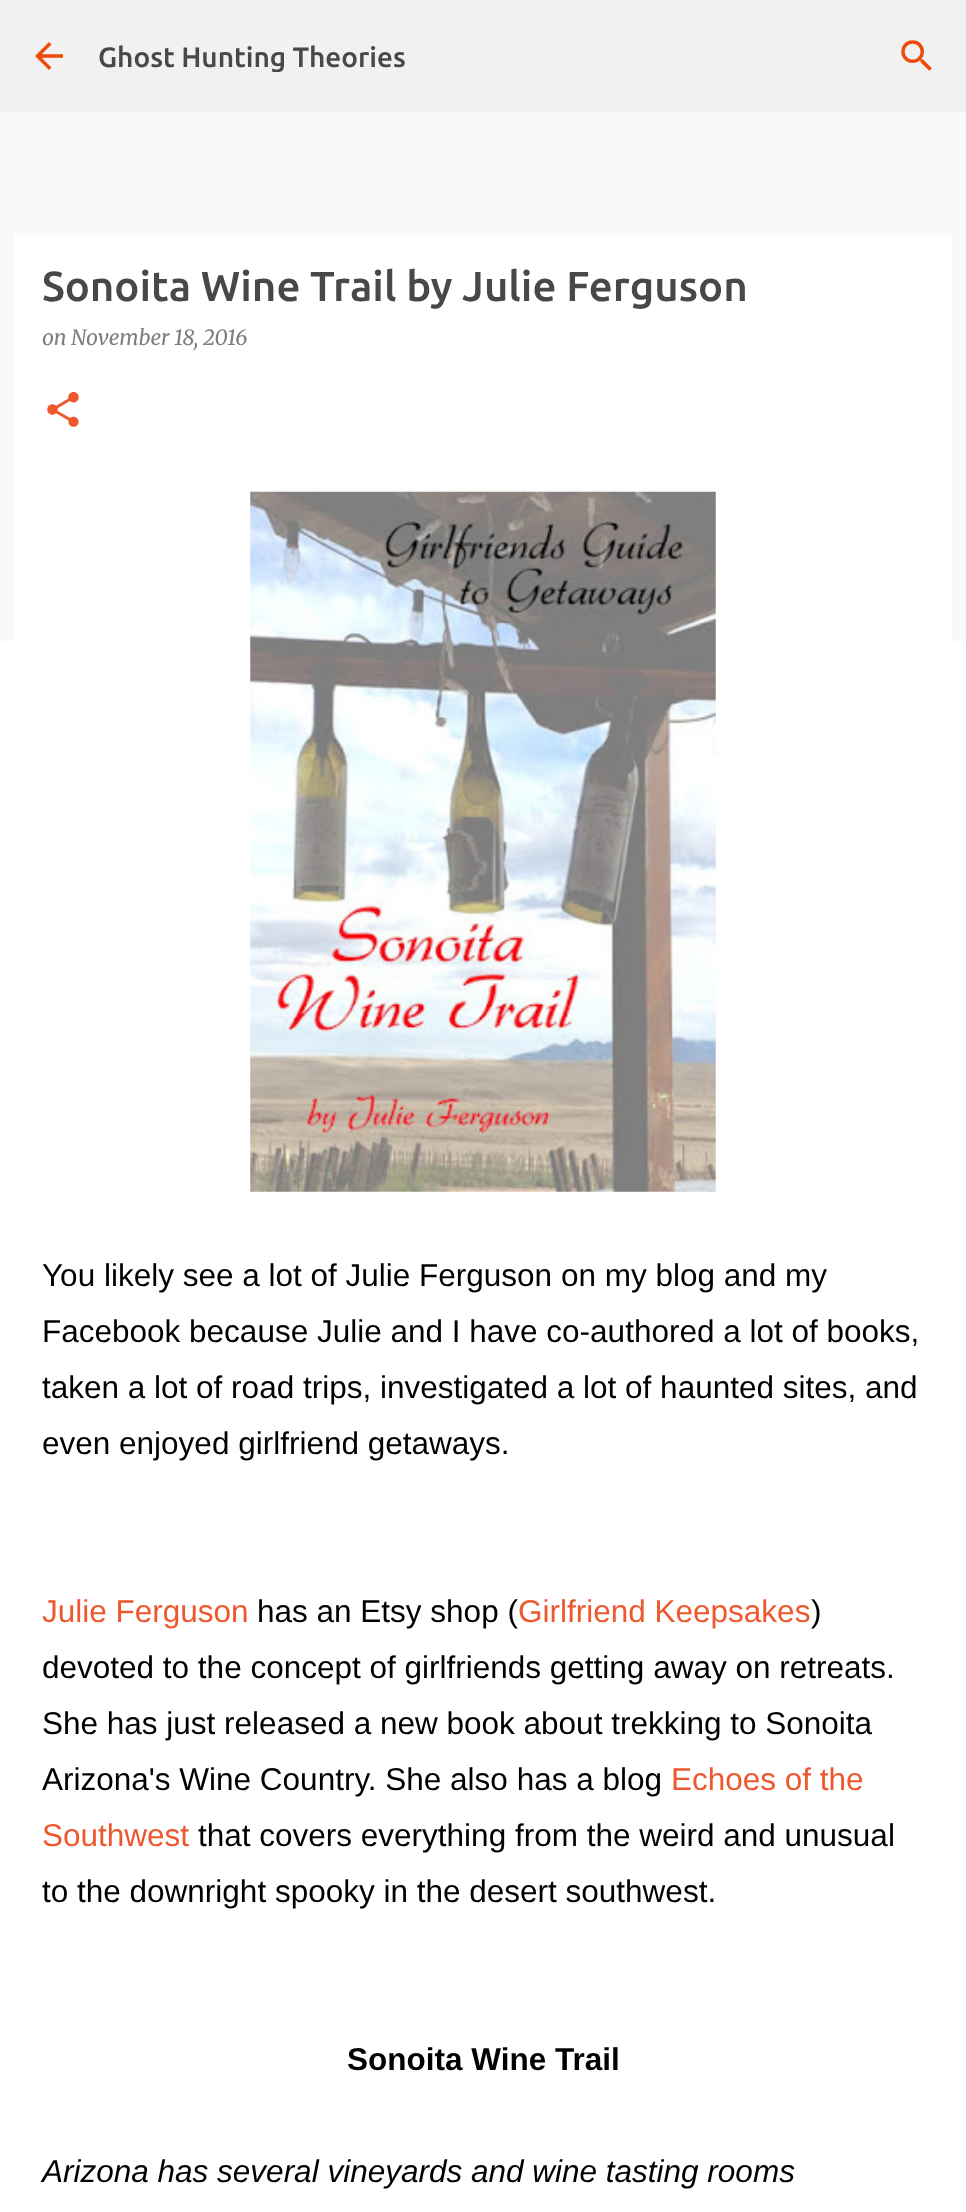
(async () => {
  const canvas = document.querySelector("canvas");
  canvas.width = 966;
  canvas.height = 2212;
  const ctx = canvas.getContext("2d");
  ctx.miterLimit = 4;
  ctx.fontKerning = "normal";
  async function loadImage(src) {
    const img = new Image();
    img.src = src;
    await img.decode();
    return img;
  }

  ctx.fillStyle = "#f9f9f9";
  ctx.fillRect(0, 0, 966, 2212);
  ctx.fillStyle = "#f1f1f1";
  ctx.fillRect(0, 0, 966, 112);
  ctx.drawImage(await loadImage("img/1.png"), 35, 42, 28, 28);
  ctx.drawImage(await loadImage("img/2.png"), 901, 40, 31, 31);
  ctx.fillStyle = "#ffffff";
  ctx.fillRect(0, 641, 966, 1571);
  ctx.fillRect(14, 235, 938, 406);
  ctx.drawImage(await loadImage("img/3.png"), 47, 392, 32, 35);
  ctx.drawImage(await loadImage("img/4.png"), 250, 491, 466, 701);
  ctx.save();
  ctx.beginPath();
  ctx.rect(98, 40, 770, 32);
  ctx.clip();
  ctx.font = "500 28px Ubuntu";
  ctx.fillStyle = "#484848";
  ctx.fillText("Ghost Hunting Theories", 98, 67);
  ctx.restore();
  ctx.font = "500 42px Ubuntu";
  ctx.fillStyle = "#484848";
  ctx.fillText("Sonoita Wine Trail by Julie Ferguson", 42, 301);
  ctx.font = "italic 21px Merriweather";
  ctx.fillStyle = "#7d7d7d";
  ctx.fillText("on November 18, 2016", 42, 345);
  ctx.font = "31.5px Liberation Sans";
  ctx.fillStyle = "#000000";
  for (const [text, x, y] of [
    ["You likely see a lot of Julie Ferguson on my blog and my", 42, 1286],
    ["Facebook because Julie and I have co-authored a lot of books,", 42, 1342],
    ["taken a lot of road trips, investigated a lot of haunted sites, and", 42, 1398],
    ["even enjoyed girlfriend getaways.", 42, 1454],
  ]) {
    ctx.fillText(text, x, y);
  }
  ctx.fillStyle = "#ee582e";
  ctx.fillText("Julie Ferguson", 42, 1622);
  ctx.fillStyle = "#000000";
  ctx.fillText("has an Etsy shop (", 257, 1622);
  ctx.fillStyle = "#ee582e";
  ctx.fillText("Girlfriend Keepsakes", 518, 1622);
  ctx.fillStyle = "#000000";
  for (const [text, x, y] of [
    [")", 811, 1622],
    ["devoted to the concept of girlfriends getting away on retreats.", 42, 1678],
    ["She has just released a new book about trekking to Sonoita", 42, 1734],
    ["Arizona's Wine Country. She also has a blog", 42, 1790],
  ]) {
    ctx.fillText(text, x, y);
  }
  ctx.fillStyle = "#ee582e";
  ctx.fillText("Echoes of the", 671, 1790);
  ctx.fillText("Southwest", 42, 1846);
  ctx.fillStyle = "#000000";
  ctx.fillText("that covers everything from the weird and unusual", 198, 1846);
  ctx.fillText("to the downright spooky in the desert southwest.", 42, 1902);
  ctx.font = "bold 31.5px Liberation Sans";
  ctx.fillText("Sonoita Wine Trail", 347, 2070);
  ctx.font = "italic 31.5px Liberation Sans";
  ctx.fillText("Arizona has several vineyards and wine tasting rooms", 42, 2182);
})();
